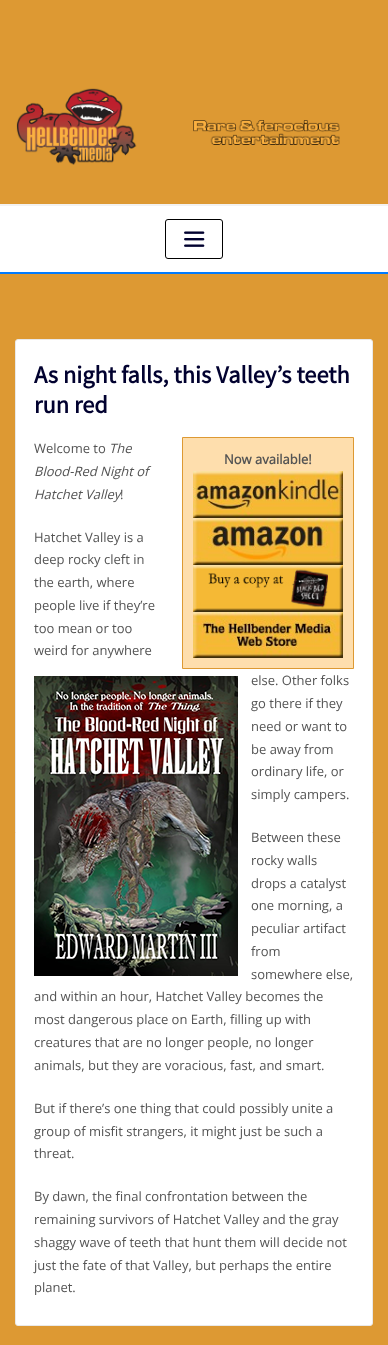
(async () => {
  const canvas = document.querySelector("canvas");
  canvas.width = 388;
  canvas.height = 1345;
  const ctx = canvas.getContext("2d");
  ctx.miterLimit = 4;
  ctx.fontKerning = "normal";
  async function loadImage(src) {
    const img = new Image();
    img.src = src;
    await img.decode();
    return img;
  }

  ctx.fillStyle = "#dd9933";
  ctx.fillRect(0, 0, 388, 1345);
  ctx.drawImage(await loadImage("img/1.png"), 16, 88, 324, 77);
  for (const [x, y, w, h, color] of [
    [0, 206, 388, 66, "#ffffff"],
    [0, 204, 388, 2, "#f3f2f1"],
    [0, 272, 388, 2, "#007bff"],
  ]) {
    ctx.fillStyle = color;
    ctx.fillRect(x, y, w, h);
  }
  ctx.beginPath();
  ctx.roundRect(165.5, 219.5, 57, 39, 2.5);
  ctx.strokeStyle = "#000000";
  ctx.stroke();
  ctx.drawImage(await loadImage("img/2.png"), 184, 231, 21, 16);
  ctx.fillStyle = "#ffffff";
  ctx.beginPath();
  ctx.roundRect(15.5, 339.5, 357, 986, 2.5);
  ctx.fill();
  ctx.strokeStyle = "#e9e9e9";
  ctx.stroke();
  ctx.fillStyle = "#fedead";
  ctx.beginPath();
  ctx.rect(182.5, 437.5, 171, 231);
  ctx.fill();
  ctx.strokeStyle = "#dd9933";
  ctx.stroke();
  ctx.drawImage(await loadImage("img/3.png"), 193, 471, 150, 47);
  ctx.drawImage(await loadImage("img/4.png"), 193, 518, 150, 47);
  ctx.drawImage(await loadImage("img/5.png"), 193, 565, 150, 47);
  ctx.drawImage(await loadImage("img/6.png"), 193, 612, 150, 46);
  ctx.drawImage(await loadImage("img/7.png"), 34, 676, 204, 300);
  ctx.font = "bold 24.4px Source Sans Pro";
  ctx.fillStyle = "#01012f";
  ctx.fillText("As night falls, this Valley’s teeth", 34, 383);
  ctx.fillText("run red", 34, 413);
  ctx.font = "13px Open Sans";
  ctx.fillStyle = "#545454";
  ctx.fillText("Welcome to", 34, 453);
  ctx.font = "italic 13px Open Sans";
  for (const [text, x, y] of [
    ["The", 109, 453],
    ["Blood-Red Night of", 34, 476],
    ["Hatchet Valley", 34, 499],
  ]) {
    ctx.fillText(text, x, y);
  }
  ctx.font = "13px Open Sans";
  ctx.fillText("!", 120, 499);
  ctx.font = "bold 13px Open Sans";
  ctx.fillText("Now available!", 224, 464);
  ctx.font = "13px Open Sans";
  for (const [text, x, y] of [
    ["Hatchet Valley is a", 34, 542],
    ["deep rocky cleft in", 34, 564],
    ["the earth, where", 34, 587],
    ["people live if they’re", 34, 610],
    ["too mean or too", 34, 633],
    ["weird for anywhere", 34, 655],
    ["else. Other folks", 251, 685],
    ["go there if they", 251, 708],
    ["need or want to", 251, 731],
    ["be away from", 251, 754],
    ["ordinary life, or", 251, 776],
    ["simply campers.", 251, 799],
    ["Between these", 251, 842],
    ["rocky walls", 251, 865],
    ["drops a catalyst", 251, 888],
    ["one morning, a", 251, 910],
    ["peculiar artifact", 251, 933],
    ["from", 251, 956],
    ["somewhere else,", 251, 979],
    ["and within an hour, Hatchet Valley becomes the", 34, 1001],
    ["most dangerous place on Earth, filling up with", 34, 1024],
    ["creatures that are no longer people, no longer", 34, 1047],
    ["animals, but they are voracious, fast, and smart.", 34, 1070],
    ["But if there’s one thing that could possibly unite a", 34, 1113],
    ["group of misfit strangers, it might just be such a", 34, 1136],
    ["threat.", 34, 1158],
    ["By dawn, the final confrontation between the", 34, 1201],
    ["remaining survivors of Hatchet Valley and the gray", 34, 1224],
    ["shaggy wave of teeth that hunt them will decide not", 34, 1247],
    ["just the fate of that Valley, but perhaps the entire", 34, 1270],
    ["planet.", 34, 1292],
  ]) {
    ctx.fillText(text, x, y);
  }
})();
